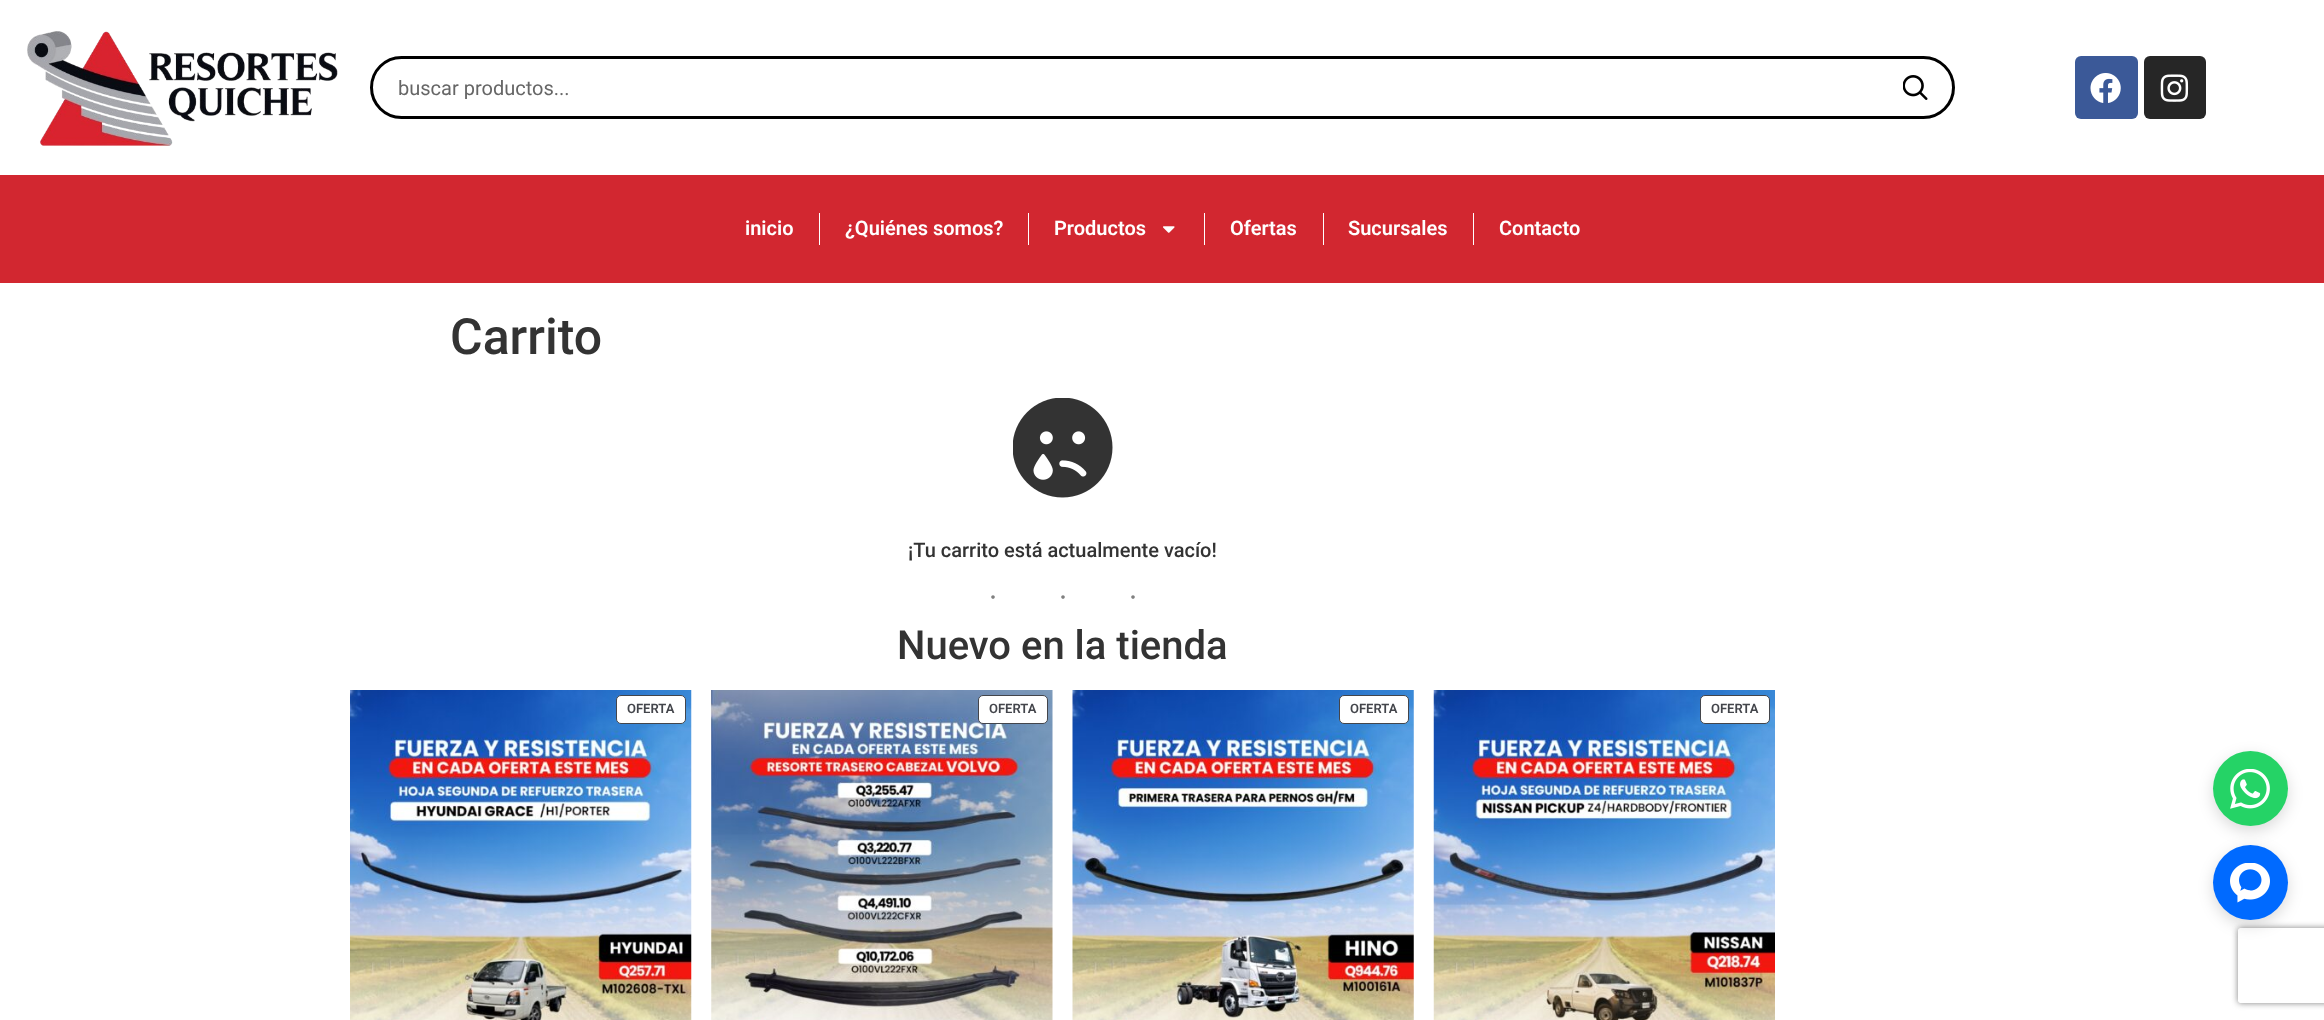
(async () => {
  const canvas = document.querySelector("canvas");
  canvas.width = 2324;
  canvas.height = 1020;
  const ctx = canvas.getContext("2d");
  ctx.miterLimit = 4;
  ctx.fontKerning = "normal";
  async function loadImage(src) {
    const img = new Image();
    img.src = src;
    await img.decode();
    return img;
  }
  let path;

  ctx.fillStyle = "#ffffff";
  ctx.fillRect(0, 0, 2324, 1020);
  ctx.drawImage(await loadImage("img/1.png"), 27, 31, 311, 115);
  ctx.beginPath();
  ctx.roundRect(371.5, 57.5, 1582, 60, 30);
  ctx.strokeStyle = "#000000";
  ctx.lineWidth = 3;
  ctx.stroke();
  ctx.drawImage(await loadImage("img/2.png"), 1903, 75, 25, 25);
  ctx.fillStyle = "#3b5998";
  ctx.beginPath();
  ctx.roundRect(2075, 56, 63, 63, 6);
  ctx.fill();
  ctx.drawImage(await loadImage("img/3.png"), 2090, 73, 31, 30);
  ctx.fillStyle = "#262626";
  ctx.beginPath();
  ctx.roundRect(2144, 56, 62, 63, 6);
  ctx.fill();
  ctx.drawImage(await loadImage("img/4.png"), 2160, 74, 29, 28);
  for (const [x, y, w, h, color] of [
    [0, 175, 2324, 108, "#d22730"],
    [819, 213, 1, 32, "#ffffff"],
    [1028, 213, 1, 32, "#ffffff"],
  ]) {
    ctx.fillStyle = color;
    ctx.fillRect(x, y, w, h);
  }
  ctx.drawImage(await loadImage("img/5.png"), 1163, 226, 12, 7);
  for (const [x, y, w, h, color] of [
    [1204, 213, 1, 32, "#ffffff"],
    [1323, 213, 1, 32, "#ffffff"],
    [1473, 213, 1, 32, "#ffffff"],
  ]) {
    ctx.fillStyle = color;
    ctx.fillRect(x, y, w, h);
  }
  ctx.drawImage(await loadImage("img/6.png"), 1013, 398, 100, 100);
  ctx.drawImage(await loadImage("img/7.png"), 350, 690, 342, 330);
  ctx.beginPath();
  ctx.roundRect(616.5, 695.5, 69, 28, 4.5);
  ctx.fill();
  ctx.strokeStyle = "#43454b";
  ctx.lineWidth = 1;
  ctx.stroke();
  ctx.drawImage(await loadImage("img/8.png"), 711, 690, 342, 330);
  ctx.beginPath();
  ctx.roundRect(978.5, 695.5, 69, 28, 4.5);
  ctx.fill();
  ctx.stroke();
  ctx.drawImage(await loadImage("img/9.png"), 1072, 690, 342, 330);
  ctx.beginPath();
  ctx.roundRect(1339.5, 695.5, 69, 28, 4.5);
  ctx.fill();
  ctx.stroke();
  ctx.drawImage(await loadImage("img/10.png"), 1433, 690, 342, 330);
  ctx.beginPath();
  ctx.roundRect(1700.5, 695.5, 69, 28, 4.5);
  ctx.fill();
  ctx.stroke();
  ctx.fillStyle = "rgba(0, 0, 0, 0.15)";
  ctx.filter = "blur(7.5px)";
  ctx.beginPath();
  ctx.roundRect(2213, 756, 75, 75, 37.5);
  ctx.fill();
  ctx.filter = "none";
  ctx.fillStyle = "#25d366";
  ctx.beginPath();
  ctx.arc(2250.5, 788.5, 37.5, 0, Math.PI * 2);
  ctx.fill();
  ctx.drawImage(await loadImage("img/11.png"), 2230, 769, 40, 40);
  ctx.fillStyle = "rgba(0, 0, 0, 0.15)";
  ctx.filter = "blur(7.5px)";
  ctx.beginPath();
  ctx.roundRect(2213, 850, 75, 75, 37.5);
  ctx.fill();
  ctx.filter = "none";
  ctx.save();
  path = new Path2D("M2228 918H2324V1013H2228ZM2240.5 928H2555.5C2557 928 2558 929 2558 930.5V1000.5C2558 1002 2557 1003 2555.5 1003H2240.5C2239 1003 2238 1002 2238 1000.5V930.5C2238 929 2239 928 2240.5 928Z");
  ctx.clip(path, "evenodd");
  ctx.fillStyle = "#808080";
  ctx.filter = "blur(3px)";
  ctx.beginPath();
  ctx.roundRect(2238, 928, 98, 75, 2.5);
  ctx.fill();
  ctx.filter = "none";
  ctx.restore();
  ctx.fillStyle = "#006aff";
  ctx.beginPath();
  ctx.arc(2250.5, 882.5, 37.5, 0, Math.PI * 2);
  ctx.fill();
  ctx.drawImage(await loadImage("img/12.png"), 2230, 863, 40, 40);
  ctx.font = "20px Roboto";
  ctx.fillStyle = "#666666";
  ctx.fillText("buscar productos...", 398, 95);
  ctx.font = "600 20px Roboto";
  ctx.fillStyle = "#ffffff";
  for (const [text, x, y] of [
    ["inicio", 745, 235],
    ["¿Quiénes somos?", 845, 235],
    ["Productos", 1054, 235],
    ["Ofertas", 1230, 235],
    ["Sucursales", 1348, 235],
    ["Contacto", 1499, 235],
  ]) {
    ctx.fillText(text, x, y);
  }
  ctx.font = "500 50px Roboto";
  ctx.fillStyle = "#333333";
  ctx.fillText("Carrito", 450, 354);
  ctx.font = "500 20px Roboto";
  ctx.fillText("¡Tu carrito está actualmente vacío!", 908, 557);
  ctx.letterSpacing = "60px";
  ctx.font = "30px Liberation Serif";
  ctx.fillStyle = "#808080";
  ctx.fillText("···", 988, 607);
  ctx.letterSpacing = "0px";
  ctx.font = "500 40px Roboto";
  ctx.fillStyle = "#333333";
  ctx.fillText("Nuevo en la tienda", 897, 659);
  ctx.font = "600 13px Roboto";
  ctx.fillStyle = "#43454b";
  for (const [text, x, y] of [
    ["OFERTA", 627, 713],
    ["OFERTA", 989, 713],
    ["OFERTA", 1350, 713],
    ["OFERTA", 1711, 713],
  ]) {
    ctx.fillText(text, x, y);
  }
})();
